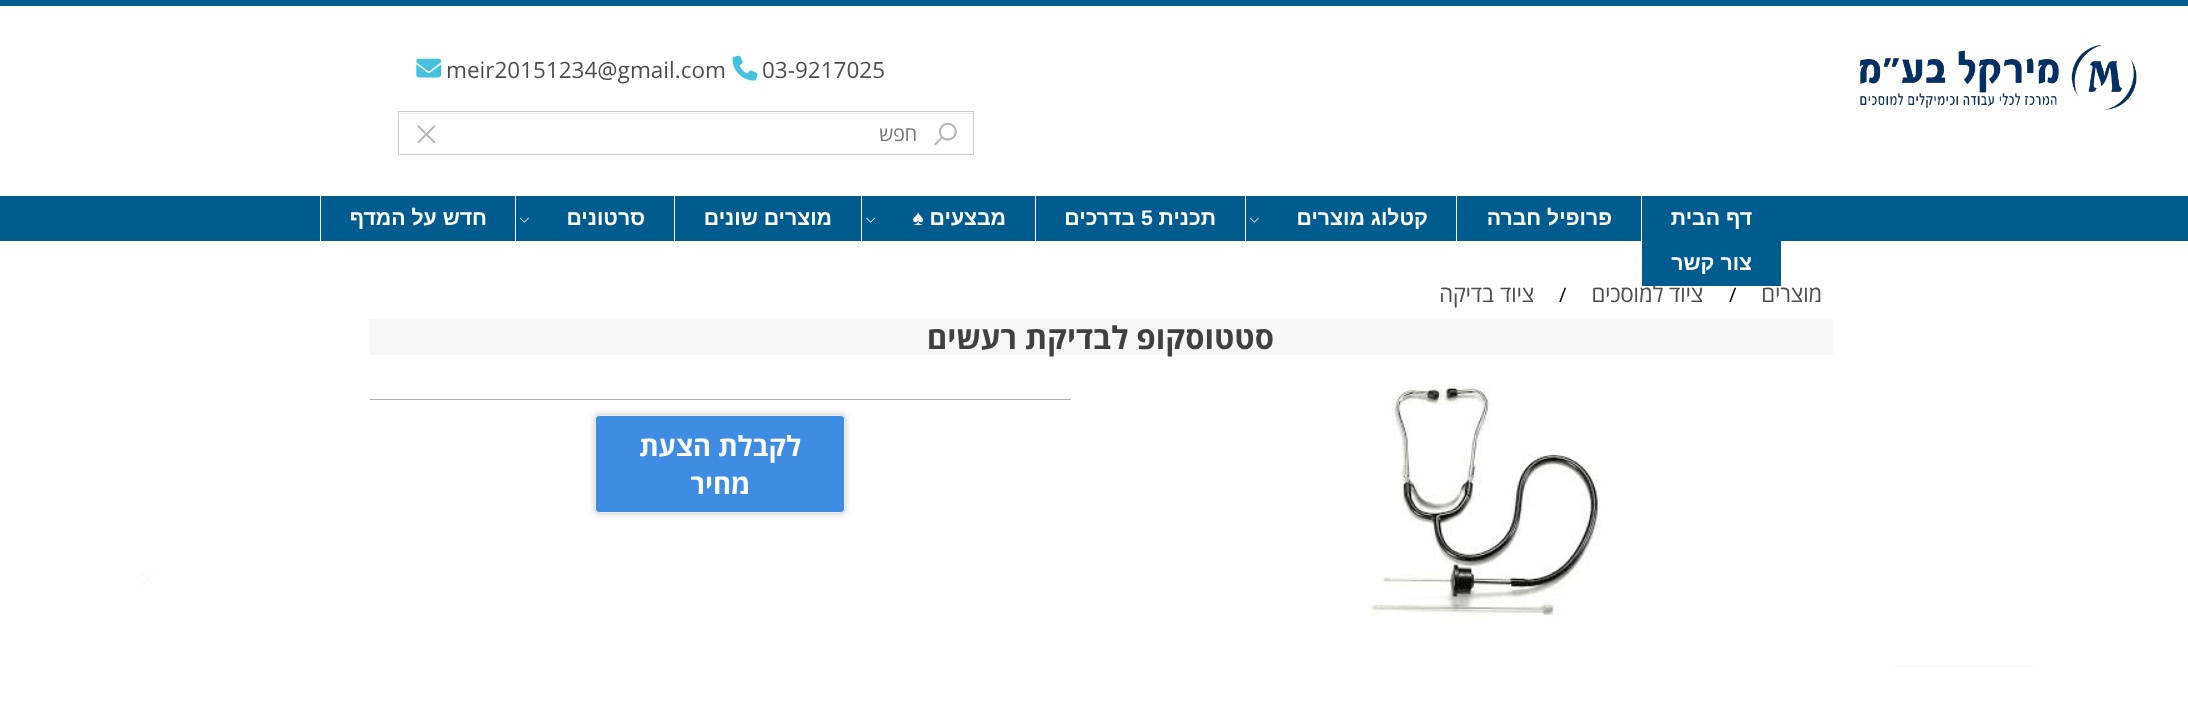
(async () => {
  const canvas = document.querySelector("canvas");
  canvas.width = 2188;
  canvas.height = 702;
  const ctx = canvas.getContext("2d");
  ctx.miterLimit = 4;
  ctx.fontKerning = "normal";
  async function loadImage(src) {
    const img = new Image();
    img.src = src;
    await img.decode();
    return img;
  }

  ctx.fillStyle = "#005c8f";
  ctx.fillRect(0, 0, 2188, 702);
  ctx.fillStyle = "#ffffff";
  ctx.fillRect(0, 6, 2188, 190);
  ctx.drawImage(await loadImage("img/1.png"), 1859, 44, 278, 66);
  ctx.drawImage(await loadImage("img/2.png"), 416, 58, 26, 20);
  ctx.drawImage(await loadImage("img/3.png"), 732, 55, 26, 26);
  ctx.fillStyle = "#ececec";
  ctx.fillRect(399, 113, 574, 1);
  ctx.strokeStyle = "#cccccc";
  ctx.strokeRect(398.5, 111.5, 575, 43);
  ctx.drawImage(await loadImage("img/4.png"), 934, 122, 23, 24);
  ctx.drawImage(await loadImage("img/5.png"), 934, 122, 23, 24);
  ctx.drawImage(await loadImage("img/6.png"), 417, 125, 19, 19);
  ctx.drawImage(await loadImage("img/7.png"), 417, 125, 19, 19);
  for (const [x, y, w, h, color] of [
    [1641, 196, 1, 45, "#ffffff"],
    [1456, 196, 1, 45, "#ffffff"],
    [1245, 196, 1, 45, "#ffffff"],
  ]) {
    ctx.fillStyle = color;
    ctx.fillRect(x, y, w, h);
  }
  ctx.drawImage(await loadImage("img/8.png"), 1249, 217, 10, 6);
  ctx.fillRect(1035, 196, 1, 45);
  ctx.fillRect(861, 196, 1, 45);
  ctx.drawImage(await loadImage("img/9.png"), 866, 217, 10, 6);
  ctx.fillRect(674, 196, 1, 45);
  ctx.fillRect(515, 196, 1, 45);
  ctx.drawImage(await loadImage("img/8.png"), 519, 217, 10, 6);
  for (const [x, y, w, h, color] of [
    [320, 196, 1, 45, "#ffffff"],
    [0, 241, 2188, 461, "#ffffff"],
    [370, 319, 1463, 36, "#f7f7f7"],
  ]) {
    ctx.fillStyle = color;
    ctx.fillRect(x, y, w, h);
  }
  ctx.drawImage(await loadImage("img/10.png"), 1370, 385, 231, 240);
  ctx.fillStyle = "#b0b0b0";
  ctx.fillRect(370, 399, 701, 1);
  ctx.fillStyle = "#d1d1d1";
  ctx.filter = "blur(3px)";
  ctx.beginPath();
  ctx.roundRect(594, 414, 252, 100, 5);
  ctx.fill();
  ctx.filter = "none";
  ctx.fillStyle = "#3f8ce3";
  ctx.beginPath();
  ctx.roundRect(595.5, 415.5, 249, 97, 3.5);
  ctx.fill();
  ctx.strokeStyle = "#ebebeb";
  ctx.stroke();
  ctx.fillStyle = "rgba(255, 255, 255, 0.03)";
  ctx.fillRect(1453, 596, 99, 17);
  ctx.strokeStyle = "rgba(243, 243, 243, 0.03)";
  ctx.strokeRect(131.5, 596.5, 1926, 96);
  ctx.drawImage(await loadImage("img/11.png"), 141, 572, 13, 13);
  ctx.fillStyle = "#f7f7f7";
  ctx.fillRect(1891, 666, 145, 1);
  ctx.font = "22.5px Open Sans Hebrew";
  ctx.fillStyle = "#4d4d4d";
  ctx.fillText("03-9217025", 762, 78);
  ctx.fillText("meir20151234@gmail.com", 446, 78);
  ctx.direction = "rtl";
  ctx.font = "20px Open Sans Hebrew";
  ctx.fillStyle = "#757575";
  ctx.fillText("חפש", 917, 141);
  ctx.font = "bold 21.25px Liberation Sans";
  ctx.fillStyle = "#ffffff";
  for (const [text, x, y] of [
    ["דף הבית", 1752, 225],
    ["פרופיל חברה", 1612, 225],
    ["קטלוג מוצרים", 1428, 225],
    ["תכנית", 1216, 225],
  ]) {
    ctx.fillText(text, x, y);
  }
  ctx.direction = "ltr";
  ctx.fillText("5", 1141, 225);
  ctx.direction = "rtl";
  for (const [text, x, y] of [
    ["בדרכים", 1135, 225],
    ["מבצעים ♠", 1006, 225],
    ["מוצרים שונים", 832, 225],
    ["סרטונים", 645, 225],
    ["חדש על המדף", 487, 225],
  ]) {
    ctx.fillText(text, x, y);
  }
  ctx.font = "22.5px Open Sans Hebrew";
  ctx.fillStyle = "#4d4d4d";
  ctx.fillText("מוצרים", 1822, 302);
  ctx.direction = "ltr";
  ctx.font = "20px Open Sans Hebrew";
  ctx.fillStyle = "#000000";
  ctx.fillText("/", 1729, 302);
  ctx.direction = "rtl";
  ctx.font = "22.5px Open Sans Hebrew";
  ctx.fillStyle = "#4d4d4d";
  ctx.fillText("ציוד למוסכים", 1703, 302);
  ctx.fillStyle = "#005c8f";
  ctx.fillRect(1642, 241, 139, 45);
  ctx.font = "bold 21.25px Liberation Sans";
  ctx.fillStyle = "#ffffff";
  ctx.fillText("צור קשר", 1752, 270);
  ctx.direction = "ltr";
  ctx.font = "20px Open Sans Hebrew";
  ctx.fillStyle = "#000000";
  ctx.fillText("/", 1559, 302);
  ctx.direction = "rtl";
  ctx.font = "22.5px Open Sans Hebrew";
  ctx.fillStyle = "#4d4d4d";
  ctx.fillText("ציוד בדיקה", 1534, 302);
  ctx.font = "bold 31.25px Open Sans Hebrew";
  ctx.fillStyle = "#404040";
  ctx.fillText("סטטוסקופ לבדיקת רעשים", 1274, 349);
  ctx.font = "bold 27.5px Open Sans Hebrew";
  ctx.fillStyle = "#ffffff";
  ctx.fillText("לקבלת הצעת", 801, 456);
  ctx.fillText("מחיר", 750, 494);
})();
